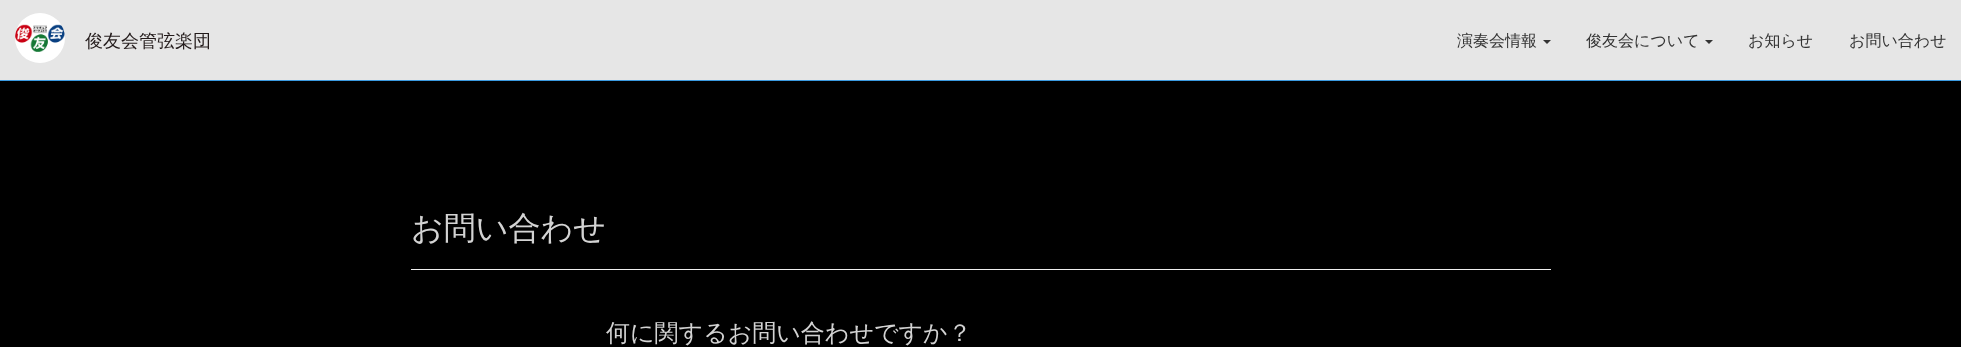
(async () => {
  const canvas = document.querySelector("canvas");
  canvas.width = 1961;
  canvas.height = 347;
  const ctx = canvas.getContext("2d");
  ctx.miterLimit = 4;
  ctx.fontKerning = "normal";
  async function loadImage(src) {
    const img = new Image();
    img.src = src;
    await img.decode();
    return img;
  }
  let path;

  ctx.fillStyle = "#000000";
  ctx.fillRect(0, 0, 1961, 347);
  ctx.fillStyle = "#e6e6e6";
  ctx.fillRect(0, 0, 1961, 80);
  ctx.fillStyle = "#3b9ae0";
  ctx.fillRect(0, 80, 1961, 1);
  ctx.drawImage(await loadImage("img/1.png"), 15, 13, 50, 50);
  ctx.fillStyle = "#333333";
  path = new Path2D("M1543 40H1551L1547 44Z");
  ctx.fill(path);
  path = new Path2D("M1705 40H1713L1709 44Z");
  ctx.fill(path);
  ctx.fillStyle = "#eeeeee";
  ctx.fillRect(411, 269, 1140, 1);
  ctx.font = "500 18px WenQuanYi Zen Hei";
  ctx.fillStyle = "#221a1a";
  ctx.fillText("俊友会管弦楽団", 85, 47);
  ctx.font = "500 16px WenQuanYi Zen Hei";
  ctx.fillStyle = "#333333";
  for (const [text, x, y] of [
    ["演奏会情報", 1457, 46],
    ["俊友会について", 1586, 46],
    ["お知らせ", 1748, 46],
    ["お問い合わせ", 1849, 46],
  ]) {
    ctx.fillText(text, x, y);
  }
  ctx.font = "500 32px WenQuanYi Zen Hei";
  ctx.fillStyle = "#d3d3d3";
  ctx.fillText("お問い合わせ", 411, 239);
  ctx.font = "500 24px WenQuanYi Zen Hei";
  ctx.fillText("何に関するお問い合わせですか？", 606, 341);
})();
